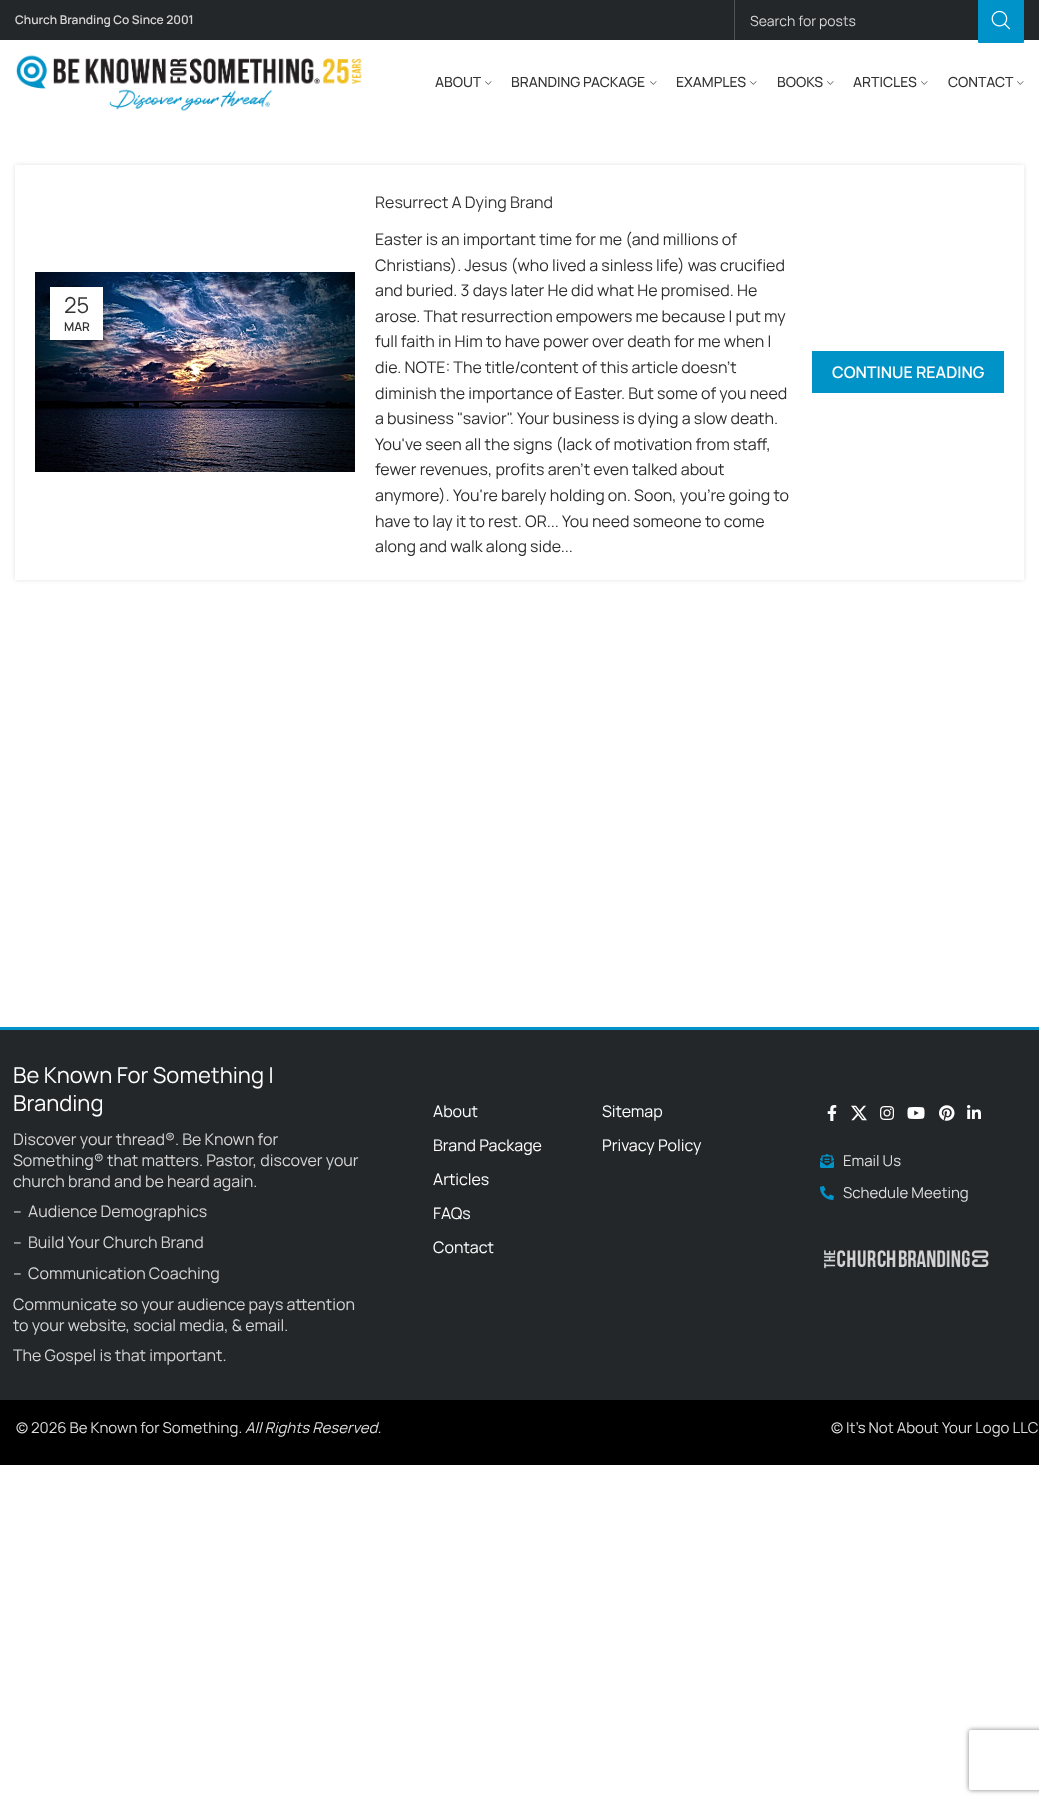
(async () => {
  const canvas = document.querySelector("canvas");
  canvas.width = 1039;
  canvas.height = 1804;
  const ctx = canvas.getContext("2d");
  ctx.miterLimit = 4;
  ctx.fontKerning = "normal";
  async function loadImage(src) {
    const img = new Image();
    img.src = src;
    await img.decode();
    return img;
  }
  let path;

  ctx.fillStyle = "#ffffff";
  ctx.fillRect(0, 0, 1039, 1804);
  ctx.fillStyle = "#24272a";
  ctx.fillRect(0, 0, 1039, 40);
  ctx.strokeStyle = "rgba(255, 255, 255, 0.2)";
  ctx.strokeRect(734.5, -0.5, 289, 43);
  ctx.fillStyle = "#0093c9";
  ctx.beginPath();
  ctx.roundRect(978, -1, 46, 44, 1);
  ctx.fill();
  ctx.drawImage(await loadImage("img/1.png"), 991, 10, 20, 20);
  ctx.drawImage(await loadImage("img/2.png"), 16, 55, 346, 56);
  ctx.drawImage(await loadImage("img/3.png"), 485, 81, 7, 4);
  ctx.drawImage(await loadImage("img/3.png"), 650, 81, 7, 4);
  ctx.drawImage(await loadImage("img/3.png"), 750, 81, 7, 4);
  ctx.drawImage(await loadImage("img/3.png"), 827, 81, 7, 4);
  ctx.drawImage(await loadImage("img/3.png"), 921, 81, 7, 4);
  ctx.drawImage(await loadImage("img/3.png"), 1017, 81, 7, 4);
  ctx.save();
  path = new Path2D("M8 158H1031V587H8ZM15 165H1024V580H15Z");
  ctx.clip(path, "evenodd");
  ctx.fillStyle = "rgba(0, 0, 0, 0.12)";
  ctx.filter = "blur(2px)";
  ctx.beginPath();
  ctx.rect(15, 165, 1009, 415);
  ctx.fill();
  ctx.filter = "none";
  ctx.restore();
  ctx.drawImage(await loadImage("img/4.png"), 35, 272, 320, 200);
  ctx.fillStyle = "rgba(0, 0, 0, 0.1)";
  ctx.filter = "blur(4.5px)";
  ctx.beginPath();
  ctx.rect(50, 287, 53, 53);
  ctx.fill();
  ctx.filter = "none";
  for (const [x, y, w, h, color] of [
    [50, 287, 53, 53, "#ffffff"],
    [812, 351, 192, 42, "#0093c8"],
    [0, 1030, 1039, 370, "#24272a"],
    [0, 1027, 1039, 3, "#0093c9"],
  ]) {
    ctx.fillStyle = color;
    ctx.fillRect(x, y, w, h);
  }
  ctx.drawImage(await loadImage("img/5.png"), 827, 1105, 10, 16);
  ctx.drawImage(await loadImage("img/6.png"), 851, 1105, 16, 16);
  ctx.drawImage(await loadImage("img/7.png"), 880, 1106, 14, 14);
  ctx.drawImage(await loadImage("img/8.png"), 907, 1107, 18, 12);
  ctx.drawImage(await loadImage("img/9.png"), 939, 1105, 16, 16);
  ctx.drawImage(await loadImage("img/10.png"), 967, 1105, 14, 14);
  ctx.drawImage(await loadImage("img/11.png"), 820, 1154, 14, 14);
  ctx.drawImage(await loadImage("img/12.png"), 820, 1186, 14, 14);
  ctx.drawImage(await loadImage("img/13.png"), 824, 1250, 165, 19);
  ctx.fillStyle = "#000000";
  ctx.fillRect(0, 1400, 1039, 65);
  ctx.save();
  path = new Path2D("M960 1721H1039V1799H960ZM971 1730H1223C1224 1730 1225 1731 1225 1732V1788C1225 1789 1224 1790 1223 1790H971C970 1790 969 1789 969 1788V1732C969 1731 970 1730 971 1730Z");
  ctx.clip(path, "evenodd");
  ctx.fillStyle = "#808080";
  ctx.filter = "blur(2.5px)";
  ctx.beginPath();
  ctx.roundRect(969, 1730, 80, 60, 2);
  ctx.fill();
  ctx.filter = "none";
  ctx.restore();
  ctx.font = "600 12px Manrope";
  ctx.fillStyle = "#d6d6d6";
  ctx.fillText("Church Branding Co Since 2001", 15, 24);
  ctx.font = "14px Manrope";
  ctx.fillText("Search for posts", 750, 26);
  ctx.font = "500 14px Manrope";
  ctx.fillStyle = "#333333";
  for (const [text, x, y] of [
    ["ABOUT", 435, 87],
    ["BRANDING PACKAGE", 511, 87],
    ["EXAMPLES", 676, 87],
    ["BOOKS", 777, 87],
    ["ARTICLES", 853, 87],
    ["CONTACT", 948, 87],
  ]) {
    ctx.fillText(text, x, y);
  }
  ctx.font = "22px Manrope";
  ctx.fillText("25", 64, 313);
  ctx.font = "600 12px Manrope";
  ctx.fillText("MAR", 64, 331);
  ctx.font = "16px Manrope";
  ctx.fillText("Resurrect A Dying Brand", 375, 208);
  ctx.fillStyle = "#2d2d2d";
  for (const [text, x, y] of [
    ["Easter is an important time for me (and millions of", 375, 245],
    ["Christians). Jesus (who lived a sinless life) was crucified", 375, 271],
    ["and buried. 3 days later He did what He promised. He", 375, 296],
    ["arose. That resurrection empowers me because I put my", 375, 322],
    ["full faith in Him to have power over death for me when I", 375, 347],
    ["die. NOTE: The title/content of this article doesn't", 375, 373],
    ["diminish the importance of Easter. But some of you need", 375, 399],
    ["a business \"savior\". Your business is dying a slow death.", 375, 424],
    ["You've seen all the signs (lack of motivation from staff,", 375, 450],
    ["fewer revenues, profits aren't even talked about", 375, 475],
    ["anymore). You're barely holding on. Soon, you're going to", 375, 501],
    ["have to lay it to rest. OR... You need someone to come", 375, 527],
    ["along and walk along side...", 375, 552],
  ]) {
    ctx.fillText(text, x, y);
  }
  ctx.font = "600 16px Manrope";
  ctx.fillStyle = "#ffffff";
  ctx.fillText("CONTINUE READING", 832, 378);
  ctx.font = "22px Manrope";
  ctx.fillText("Be Known For Something |", 13, 1083);
  ctx.fillText("Branding", 13, 1111);
  ctx.font = "16px Manrope";
  ctx.fillStyle = "#d6d6d6";
  for (const [text, x, y] of [
    ["Discover your thread®. Be Known for", 13, 1145],
    ["Something® that matters. Pastor, discover your", 13, 1166],
    ["church brand and be heard again.", 13, 1187],
    ["–  Audience Demographics", 13, 1217],
    ["–  Build Your Church Brand", 13, 1248],
    ["–  Communication Coaching", 13, 1279],
    ["Communicate so your audience pays attention", 13, 1310],
    ["to your website, social media, & email.", 13, 1331],
    ["The Gospel is that important.", 13, 1361],
  ]) {
    ctx.fillText(text, x, y);
  }
  ctx.fillStyle = "#ffffff";
  for (const [text, x, y] of [
    ["About", 433, 1117],
    ["Brand Package", 433, 1151],
    ["Articles", 433, 1185],
    ["FAQs", 433, 1219],
    ["Contact", 433, 1253],
    ["Sitemap", 602, 1117],
    ["Privacy Policy", 602, 1151],
  ]) {
    ctx.fillText(text, x, y);
  }
  ctx.font = "15px Manrope";
  ctx.fillStyle = "#dfdfdf";
  for (const [text, x, y] of [
    ["Email Us", 843, 1166],
    ["Schedule Meeting", 843, 1198],
    ["© 2026 Be Known for Something.", 16, 1433],
  ]) {
    ctx.fillText(text, x, y);
  }
  ctx.font = "italic 15px Manrope";
  ctx.fillText("All Rights Reserved.", 245, 1433);
  ctx.font = "15px Manrope";
  ctx.fillText("© It's Not About Your Logo LLC", 831, 1433);
})();
